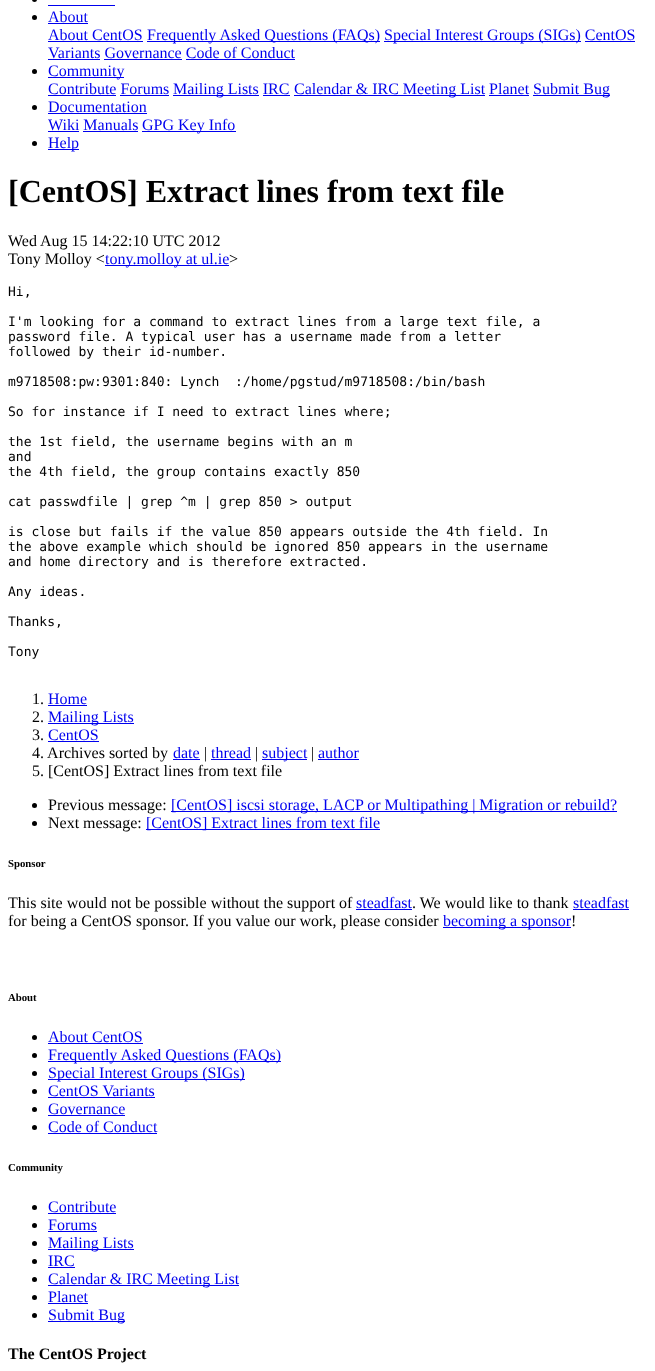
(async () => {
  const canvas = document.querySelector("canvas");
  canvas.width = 655;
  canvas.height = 1371;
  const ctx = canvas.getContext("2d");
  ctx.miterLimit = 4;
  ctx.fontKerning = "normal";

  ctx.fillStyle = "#ffffff";
  ctx.fillRect(0, 0, 655, 1371);
  ctx.fillStyle = "#000000";
  ctx.beginPath();
  ctx.arc(34.5, -0.5, 2.5, 0, Math.PI * 2);
  ctx.fill();
  ctx.fillStyle = "#0000ee";
  ctx.fillRect(48, 5, 67, 1);
  ctx.fillStyle = "#000000";
  ctx.beginPath();
  ctx.arc(34.5, 17.5, 2.5, 0, Math.PI * 2);
  ctx.fill();
  for (const [x, y, w, h, color] of [
    [48, 23, 40, 1, "#0000ee"],
    [48, 41, 95, 1, "#0000ee"],
    [147, 41, 233, 1, "#0000ee"],
    [384, 41, 197, 1, "#0000ee"],
    [585, 41, 50, 1, "#0000ee"],
    [48, 59, 52, 1, "#0000ee"],
    [104, 59, 78, 1, "#0000ee"],
    [186, 59, 109, 1, "#0000ee"],
  ]) {
    ctx.fillStyle = color;
    ctx.fillRect(x, y, w, h);
  }
  ctx.fillStyle = "#000000";
  ctx.beginPath();
  ctx.arc(34.5, 71.5, 2.5, 0, Math.PI * 2);
  ctx.fill();
  for (const [x, y, w, h, color] of [
    [48, 77, 76, 1, "#0000ee"],
    [48, 95, 68, 1, "#0000ee"],
    [173, 95, 86, 1, "#0000ee"],
    [294, 95, 191, 1, "#0000ee"],
    [533, 95, 77, 1, "#0000ee"],
    [120, 95, 49, 1, "#0000ee"],
    [263, 95, 27, 1, "#0000ee"],
    [489, 95, 40, 1, "#0000ee"],
  ]) {
    ctx.fillStyle = color;
    ctx.fillRect(x, y, w, h);
  }
  ctx.fillStyle = "#000000";
  ctx.beginPath();
  ctx.arc(34.5, 107.5, 2.5, 0, Math.PI * 2);
  ctx.fill();
  for (const [x, y, w, h, color] of [
    [48, 113, 99, 1, "#0000ee"],
    [48, 131, 31, 1, "#0000ee"],
    [142, 131, 94, 1, "#0000ee"],
    [83, 131, 55, 1, "#0000ee"],
  ]) {
    ctx.fillStyle = color;
    ctx.fillRect(x, y, w, h);
  }
  ctx.fillStyle = "#000000";
  ctx.beginPath();
  ctx.arc(34.5, 143.5, 2.5, 0, Math.PI * 2);
  ctx.fill();
  for (const [x, y, w, h, color] of [
    [48, 149, 31, 1, "#0000ee"],
    [105, 265, 124, 1, "#0000ee"],
    [48, 705, 39, 1, "#0000ee"],
    [48, 723, 86, 1, "#0000ee"],
    [48, 741, 51, 1, "#0000ee"],
    [173, 759, 27, 1, "#0000ee"],
    [211, 759, 40, 1, "#0000ee"],
    [262, 759, 45, 1, "#0000ee"],
    [318, 759, 41, 1, "#0000ee"],
  ]) {
    ctx.fillStyle = color;
    ctx.fillRect(x, y, w, h);
  }
  ctx.fillStyle = "#000000";
  ctx.beginPath();
  ctx.arc(34.5, 805.5, 2.5, 0, Math.PI * 2);
  ctx.fill();
  ctx.fillStyle = "#0000ee";
  ctx.fillRect(171, 811, 446, 1);
  ctx.fillStyle = "#000000";
  ctx.beginPath();
  ctx.arc(34.5, 823.5, 2.5, 0, Math.PI * 2);
  ctx.fill();
  for (const [x, y, w, h, color] of [
    [146, 829, 234, 1, "#0000ee"],
    [356, 909, 56, 1, "#0000ee"],
    [573, 909, 56, 1, "#0000ee"],
    [443, 927, 128, 1, "#0000ee"],
  ]) {
    ctx.fillStyle = color;
    ctx.fillRect(x, y, w, h);
  }
  ctx.fillStyle = "#000000";
  ctx.beginPath();
  ctx.arc(34.5, 1037.5, 2.5, 0, Math.PI * 2);
  ctx.fill();
  ctx.fillStyle = "#0000ee";
  ctx.fillRect(48, 1043, 95, 1);
  ctx.fillStyle = "#000000";
  ctx.beginPath();
  ctx.arc(34.5, 1055.5, 2.5, 0, Math.PI * 2);
  ctx.fill();
  ctx.fillStyle = "#0000ee";
  ctx.fillRect(48, 1061, 233, 1);
  ctx.fillStyle = "#000000";
  ctx.beginPath();
  ctx.arc(34.5, 1073.5, 2.5, 0, Math.PI * 2);
  ctx.fill();
  ctx.fillStyle = "#0000ee";
  ctx.fillRect(48, 1079, 197, 1);
  ctx.fillStyle = "#000000";
  ctx.beginPath();
  ctx.arc(34.5, 1091.5, 2.5, 0, Math.PI * 2);
  ctx.fill();
  ctx.fillStyle = "#0000ee";
  ctx.fillRect(48, 1097, 107, 1);
  ctx.fillStyle = "#000000";
  ctx.beginPath();
  ctx.arc(34.5, 1109.5, 2.5, 0, Math.PI * 2);
  ctx.fill();
  ctx.fillStyle = "#0000ee";
  ctx.fillRect(48, 1115, 77, 1);
  ctx.fillStyle = "#000000";
  ctx.beginPath();
  ctx.arc(34.5, 1127.5, 2.5, 0, Math.PI * 2);
  ctx.fill();
  ctx.fillStyle = "#0000ee";
  ctx.fillRect(48, 1133, 109, 1);
  ctx.fillStyle = "#000000";
  ctx.beginPath();
  ctx.arc(34.5, 1207.5, 2.5, 0, Math.PI * 2);
  ctx.fill();
  ctx.fillStyle = "#0000ee";
  ctx.fillRect(48, 1213, 68, 1);
  ctx.fillStyle = "#000000";
  ctx.beginPath();
  ctx.arc(34.5, 1225.5, 2.5, 0, Math.PI * 2);
  ctx.fill();
  ctx.fillStyle = "#0000ee";
  ctx.fillRect(48, 1231, 49, 1);
  ctx.fillStyle = "#000000";
  ctx.beginPath();
  ctx.arc(34.5, 1243.5, 2.5, 0, Math.PI * 2);
  ctx.fill();
  ctx.fillStyle = "#0000ee";
  ctx.fillRect(48, 1249, 86, 1);
  ctx.fillStyle = "#000000";
  ctx.beginPath();
  ctx.arc(34.5, 1261.5, 2.5, 0, Math.PI * 2);
  ctx.fill();
  ctx.fillStyle = "#0000ee";
  ctx.fillRect(48, 1267, 27, 1);
  ctx.fillStyle = "#000000";
  ctx.beginPath();
  ctx.arc(34.5, 1279.5, 2.5, 0, Math.PI * 2);
  ctx.fill();
  ctx.fillStyle = "#0000ee";
  ctx.fillRect(48, 1285, 191, 1);
  ctx.fillStyle = "#000000";
  ctx.beginPath();
  ctx.arc(34.5, 1297.5, 2.5, 0, Math.PI * 2);
  ctx.fill();
  ctx.fillStyle = "#0000ee";
  ctx.fillRect(48, 1303, 40, 1);
  ctx.fillStyle = "#000000";
  ctx.beginPath();
  ctx.arc(34.5, 1315.5, 2.5, 0, Math.PI * 2);
  ctx.fill();
  ctx.fillStyle = "#0000ee";
  ctx.fillRect(48, 1321, 77, 1);
  ctx.font = "16px Liberation Serif";
  for (const [text, x, y] of [
    ["About", 48, 22],
    ["About CentOS", 48, 40],
    ["Frequently Asked Questions (FAQs)", 147, 40],
    ["Special Interest Groups (SIGs) CentOS", 384, 40],
    ["Variants Governance Code of Conduct", 48, 58],
    ["Community", 48, 76],
    ["Contribute Forums", 48, 94],
    ["Mailing Lists IRC", 173, 94],
    ["Calendar & IRC Meeting List Planet", 294, 94],
    ["Submit Bug", 533, 94],
    ["Documentation", 48, 112],
    ["Wiki Manuals", 48, 130],
    ["GPG Key Info", 142, 130],
    ["Help", 48, 148],
  ]) {
    ctx.fillText(text, x, y);
  }
  ctx.font = "bold 32px Liberation Serif";
  ctx.fillStyle = "#000000";
  ctx.fillText("[CentOS] Extract lines from text file", 8, 202);
  ctx.font = "16px Liberation Serif";
  ctx.fillText("Wed Aug 15 14:22:10 UTC 2012", 8, 246);
  ctx.fillText("Tony Molloy <", 8, 264);
  ctx.fillStyle = "#0000ee";
  ctx.fillText("tony.molloy at ul.ie", 105, 264);
  ctx.fillStyle = "#000000";
  ctx.fillText(">", 229, 264);
  ctx.font = "13px DejaVu Sans Mono";
  for (const [text, x, y] of [
    ["Hi,", 8, 296],
    ["I'm looking for a command to extract lines from a large text file, a", 8, 326],
    ["password file. A typical user has a username made from a letter", 8, 341],
    ["followed by their id-number.", 8, 356],
    ["m9718508:pw:9301:840: Lynch  :/home/pgstud/m9718508:/bin/bash", 8, 386],
    ["So for instance if I need to extract lines where;", 8, 416],
    ["the 1st field, the username begins with an m", 8, 446],
    ["and", 8, 461],
    ["the 4th field, the group contains exactly 850", 8, 476],
    ["cat passwdfile | grep ^m | grep 850 > output", 8, 506],
    ["is close but fails if the value 850 appears outside the 4th field. In", 8, 536],
    ["the above example which should be ignored 850 appears in the username", 8, 551],
    ["and home directory and is therefore extracted.", 8, 566],
    ["Any ideas.", 8, 596],
    ["Thanks,", 8, 626],
    ["Tony", 8, 656],
  ]) {
    ctx.fillText(text, x, y);
  }
  ctx.font = "16px Liberation Serif";
  ctx.fillText("1.", 32, 704);
  ctx.fillStyle = "#0000ee";
  ctx.fillText("Home", 48, 704);
  ctx.fillStyle = "#000000";
  ctx.fillText("2.", 32, 722);
  ctx.fillStyle = "#0000ee";
  ctx.fillText("Mailing Lists", 48, 722);
  ctx.fillStyle = "#000000";
  ctx.fillText("3.", 32, 740);
  ctx.fillStyle = "#0000ee";
  ctx.fillText("CentOS", 48, 740);
  ctx.fillStyle = "#000000";
  ctx.fillText("4. Archives sorted by", 32, 758);
  ctx.fillStyle = "#0000ee";
  ctx.fillText("date", 173, 758);
  ctx.fillStyle = "#000000";
  ctx.fillText("|", 204, 758);
  ctx.fillStyle = "#0000ee";
  ctx.fillText("thread", 211, 758);
  ctx.fillStyle = "#000000";
  ctx.fillText("|", 255, 758);
  ctx.fillStyle = "#0000ee";
  ctx.fillText("subject", 262, 758);
  ctx.fillStyle = "#000000";
  ctx.fillText("|", 311, 758);
  ctx.fillStyle = "#0000ee";
  ctx.fillText("author", 318, 758);
  ctx.fillStyle = "#000000";
  ctx.fillText("5. [CentOS] Extract lines from text file", 32, 776);
  ctx.fillText("Previous message:", 48, 810);
  ctx.fillStyle = "#0000ee";
  ctx.fillText("[CentOS] iscsi storage, LACP or Multipathing | Migration or rebuild?", 171, 810);
  ctx.fillStyle = "#000000";
  ctx.fillText("Next message:", 48, 828);
  ctx.fillStyle = "#0000ee";
  ctx.fillText("[CentOS] Extract lines from text file", 146, 828);
  ctx.font = "bold 10.75px Liberation Serif";
  ctx.fillStyle = "#000000";
  ctx.fillText("Sponsor", 8, 867);
  ctx.font = "16px Liberation Serif";
  ctx.fillText("This site would not be possible without the support of", 8, 908);
  ctx.fillStyle = "#0000ee";
  ctx.fillText("steadfast", 356, 908);
  ctx.fillStyle = "#000000";
  ctx.fillText(". We would like to thank", 412, 908);
  ctx.fillStyle = "#0000ee";
  ctx.fillText("steadfast", 573, 908);
  ctx.fillStyle = "#000000";
  ctx.fillText("for being a CentOS sponsor. If you value our work, please consider", 8, 926);
  ctx.fillStyle = "#0000ee";
  ctx.fillText("becoming a sponsor", 443, 926);
  ctx.fillStyle = "#000000";
  ctx.fillText("!", 571, 926);
  ctx.font = "bold 10.75px Liberation Serif";
  ctx.fillText("About", 8, 1001);
  ctx.font = "16px Liberation Serif";
  ctx.fillStyle = "#0000ee";
  for (const [text, x, y] of [
    ["About CentOS", 48, 1042],
    ["Frequently Asked Questions (FAQs)", 48, 1060],
    ["Special Interest Groups (SIGs)", 48, 1078],
    ["CentOS Variants", 48, 1096],
    ["Governance", 48, 1114],
    ["Code of Conduct", 48, 1132],
  ]) {
    ctx.fillText(text, x, y);
  }
  ctx.font = "bold 10.75px Liberation Serif";
  ctx.fillStyle = "#000000";
  ctx.fillText("Community", 8, 1171);
  ctx.font = "16px Liberation Serif";
  ctx.fillStyle = "#0000ee";
  for (const [text, x, y] of [
    ["Contribute", 48, 1212],
    ["Forums", 48, 1230],
    ["Mailing Lists", 48, 1248],
    ["IRC", 48, 1266],
    ["Calendar & IRC Meeting List", 48, 1284],
    ["Planet", 48, 1302],
    ["Submit Bug", 48, 1320],
  ]) {
    ctx.fillText(text, x, y);
  }
  ctx.font = "bold 16px Liberation Serif";
  ctx.fillStyle = "#000000";
  ctx.fillText("The CentOS Project", 8, 1359);
})();
